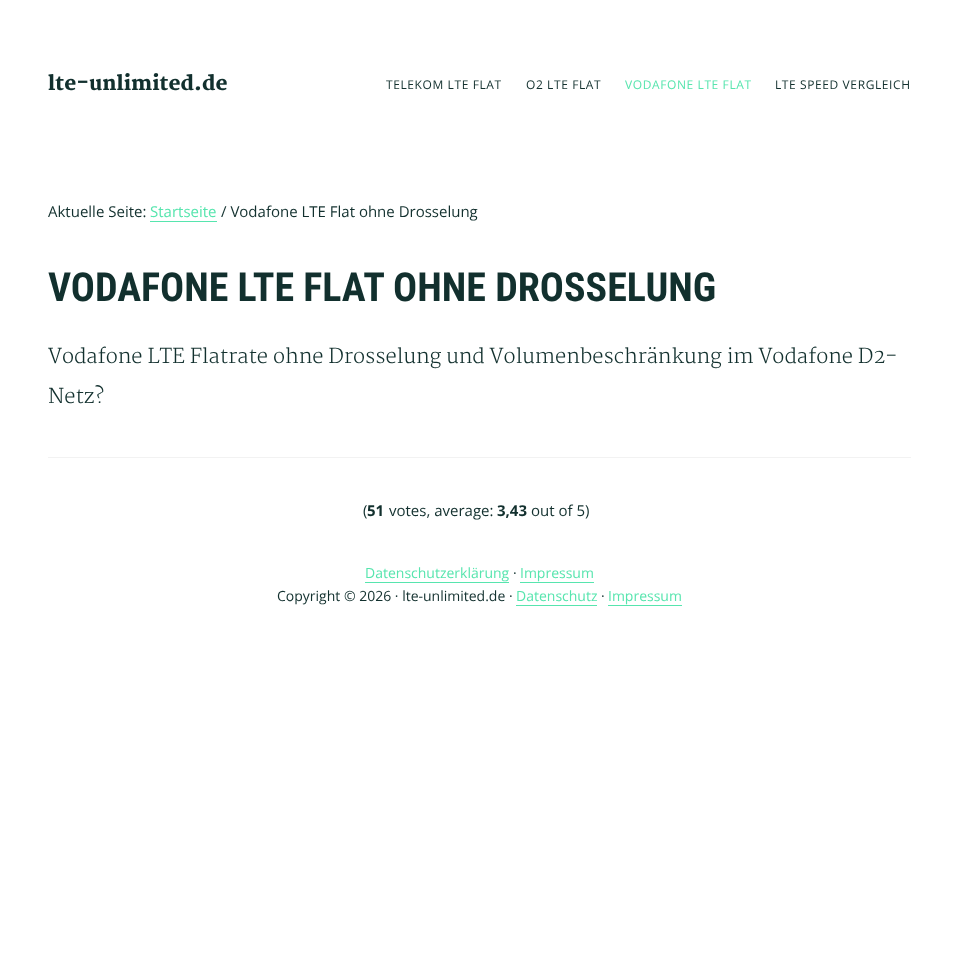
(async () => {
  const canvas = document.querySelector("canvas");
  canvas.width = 959;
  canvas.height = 967;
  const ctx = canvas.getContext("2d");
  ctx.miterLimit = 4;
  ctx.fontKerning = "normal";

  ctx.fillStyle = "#ffffff";
  ctx.fillRect(0, 0, 959, 967);
  for (const [x, y, w, h, color] of [
    [150, 221, 67, 1, "#57e5ae"],
    [48, 457, 863, 1, "#f2f2f2"],
    [365, 582, 144, 1, "#57e5ae"],
    [520, 582, 74, 1, "#57e5ae"],
    [516, 605, 81, 1, "#57e5ae"],
    [608, 605, 74, 1, "#57e5ae"],
  ]) {
    ctx.fillStyle = color;
    ctx.fillRect(x, y, w, h);
  }
  ctx.font = "900 20px Martel";
  ctx.fillStyle = "#12302e";
  ctx.fillText("lte-unlimited.de", 48, 90);
  ctx.letterSpacing = "0.6px";
  ctx.font = "12px Open Sans";
  ctx.fillText("TELEKOM LTE FLAT", 386, 89);
  ctx.fillText("O2 LTE FLAT", 526, 89);
  ctx.fillStyle = "#57e5ae";
  ctx.fillText("VODAFONE LTE FLAT", 625, 89);
  ctx.fillStyle = "#12302e";
  ctx.fillText("LTE SPEED VERGLEICH", 775, 89);
  ctx.letterSpacing = "0px";
  ctx.font = "15px Open Sans";
  ctx.fillText("Aktuelle Seite:", 48, 217);
  ctx.fillStyle = "#57e5ae";
  ctx.fillText("Startseite", 150, 217);
  ctx.fillStyle = "#12302e";
  ctx.fillText("/ Vodafone LTE Flat ohne Drosselung", 221, 217);
  ctx.font = "bold 40px Roboto Condensed";
  ctx.fillText("VODAFONE LTE FLAT OHNE DROSSELUNG", 48, 301);
  ctx.font = "200 20px Martel";
  ctx.fillText("Vodafone LTE Flatrate ohne Drosselung und Volumenbeschränkung im Vodafone D2-", 48, 363);
  ctx.fillText("Netz?", 48, 403);
  ctx.font = "15px Open Sans";
  ctx.fillText("(", 363, 516);
  ctx.font = "bold 15px Open Sans";
  ctx.fillText("51", 367, 516);
  ctx.font = "15px Open Sans";
  ctx.fillText("votes, average:", 389, 516);
  ctx.font = "bold 15px Open Sans";
  ctx.fillText("3,43", 497, 516);
  ctx.font = "15px Open Sans";
  ctx.fillText("out of 5)", 531, 516);
  ctx.font = "14px Open Sans";
  ctx.fillStyle = "#57e5ae";
  ctx.fillText("Datenschutzerklärung", 365, 578);
  ctx.fillStyle = "#12302e";
  ctx.fillText("·", 513, 578);
  ctx.fillStyle = "#57e5ae";
  ctx.fillText("Impressum", 520, 578);
  ctx.fillStyle = "#12302e";
  ctx.fillText("Copyright © 2026 · lte-unlimited.de ·", 277, 601);
  ctx.fillStyle = "#57e5ae";
  ctx.fillText("Datenschutz", 516, 601);
  ctx.fillStyle = "#12302e";
  ctx.fillText("·", 601, 601);
  ctx.fillStyle = "#57e5ae";
  ctx.fillText("Impressum", 608, 601);
})();
